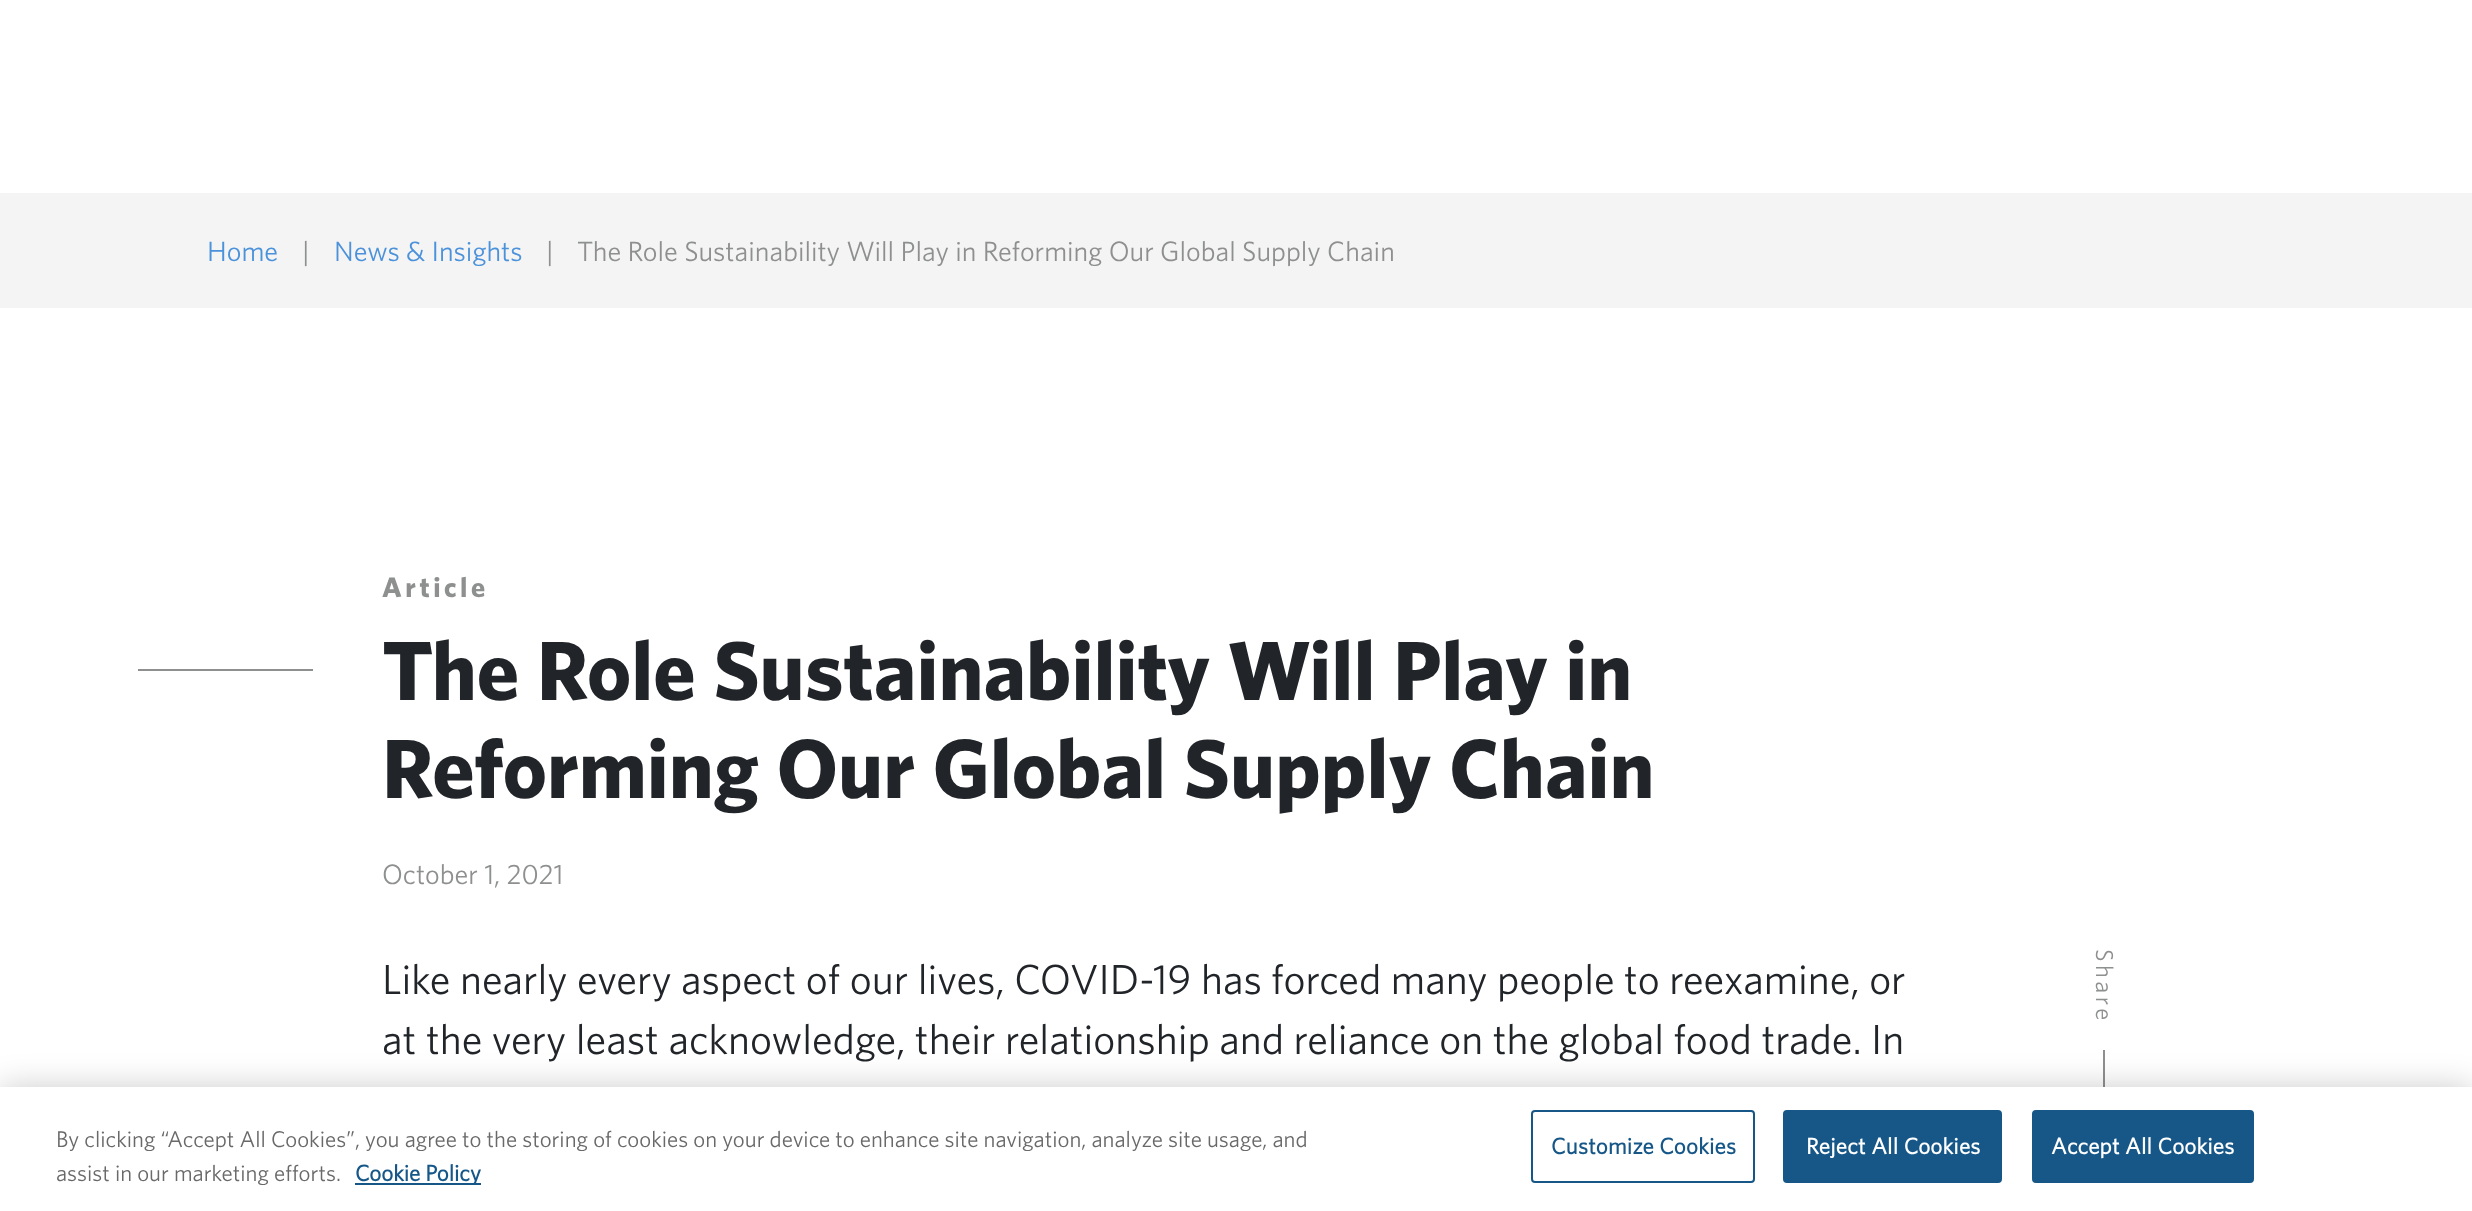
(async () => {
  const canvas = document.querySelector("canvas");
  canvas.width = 2472;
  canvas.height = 1211;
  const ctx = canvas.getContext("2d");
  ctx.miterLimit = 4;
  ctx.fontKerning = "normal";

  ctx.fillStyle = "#ffffff";
  ctx.fillRect(0, 0, 2472, 1211);
  for (const [x, y, w, h, color] of [
    [0, 193, 2472, 115, "#f4f4f4"],
    [138, 669, 175, 2, "#8e908f"],
    [2103, 1050, 2, 37, "#8e908f"],
  ]) {
    ctx.fillStyle = color;
    ctx.fillRect(x, y, w, h);
  }
  ctx.fillStyle = "rgba(0, 0, 0, 0.2)";
  ctx.filter = "blur(16px)";
  ctx.beginPath();
  ctx.rect(0, 1087, 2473, 124);
  ctx.fill();
  ctx.filter = "none";
  ctx.fillStyle = "#ffffff";
  ctx.fillRect(0, 1087, 2472, 124);
  ctx.fillStyle = "#165788";
  ctx.fillRect(355, 1183, 126, 2);
  ctx.beginPath();
  ctx.roundRect(1532, 1111, 222, 71, 3);
  ctx.strokeStyle = "#165788";
  ctx.lineWidth = 2;
  ctx.stroke();
  ctx.beginPath();
  ctx.roundRect(1784, 1111, 217, 71, 3);
  ctx.fill();
  ctx.stroke();
  ctx.beginPath();
  ctx.roundRect(2033, 1111, 220, 71, 3);
  ctx.fill();
  ctx.stroke();
  ctx.font = "28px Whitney";
  ctx.fillStyle = "#4b92db";
  ctx.fillText("Home", 207, 261);
  ctx.fillStyle = "#8e908f";
  ctx.fillText("|", 302, 261);
  ctx.fillStyle = "#4b92db";
  ctx.fillText("News & Insights", 334, 261);
  ctx.fillStyle = "#8e908f";
  ctx.fillText("|", 546, 261);
  ctx.fillText("The Role Sustainability Will Play in Reforming Our Global Supply Chain", 577, 261);
  ctx.letterSpacing = "3.5px";
  ctx.font = "bold 28px Whitney";
  ctx.fillText("Article", 382, 597);
  ctx.letterSpacing = "0px";
  ctx.font = "bold 84px Whitney";
  ctx.fillStyle = "#212529";
  ctx.fillText("The Role Sustainability Will Play in", 382, 700);
  ctx.fillText("Reforming Our Global Supply Chain", 382, 798);
  ctx.font = "28px Whitney";
  ctx.fillStyle = "#8e908f";
  ctx.fillText("October 1, 2021", 382, 884);
  ctx.font = "42px Whitney";
  ctx.fillStyle = "#212529";
  ctx.fillText("Like nearly every aspect of our lives, COVID-19 has forced many people to reexamine, or", 382, 994);
  ctx.fillText("at the very least acknowledge, their relationship and reliance on the global food trade. In", 382, 1054);
  ctx.letterSpacing = "3.5px";
  ctx.font = "24.5px Whitney";
  ctx.fillStyle = "#8e908f";
  ctx.save();
  ctx.translate(2096, 949);
  ctx.rotate(90 * Math.PI / 180);
  ctx.fillText("Share", 0, 0);
  ctx.restore();
  ctx.letterSpacing = "0px";
  ctx.font = "22.75px Whitney";
  ctx.fillStyle = "#696969";
  ctx.fillText("By clicking “Accept All Cookies”, you agree to the storing of cookies on your device to enhance site navigation, analyze site usage, and", 56, 1147);
  ctx.fillText("assist in our marketing efforts.", 56, 1181);
  ctx.font = "bold 22.75px 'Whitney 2'";
  ctx.fillStyle = "#165788";
  ctx.fillText("Cookie Policy", 355, 1181);
  ctx.letterSpacing = "0.25px";
  ctx.fillText("Customize Cookies", 1551, 1154);
  ctx.fillStyle = "#ffffff";
  ctx.fillText("Reject All Cookies", 1806, 1154);
  ctx.fillText("Accept All Cookies", 2051, 1154);
})();
